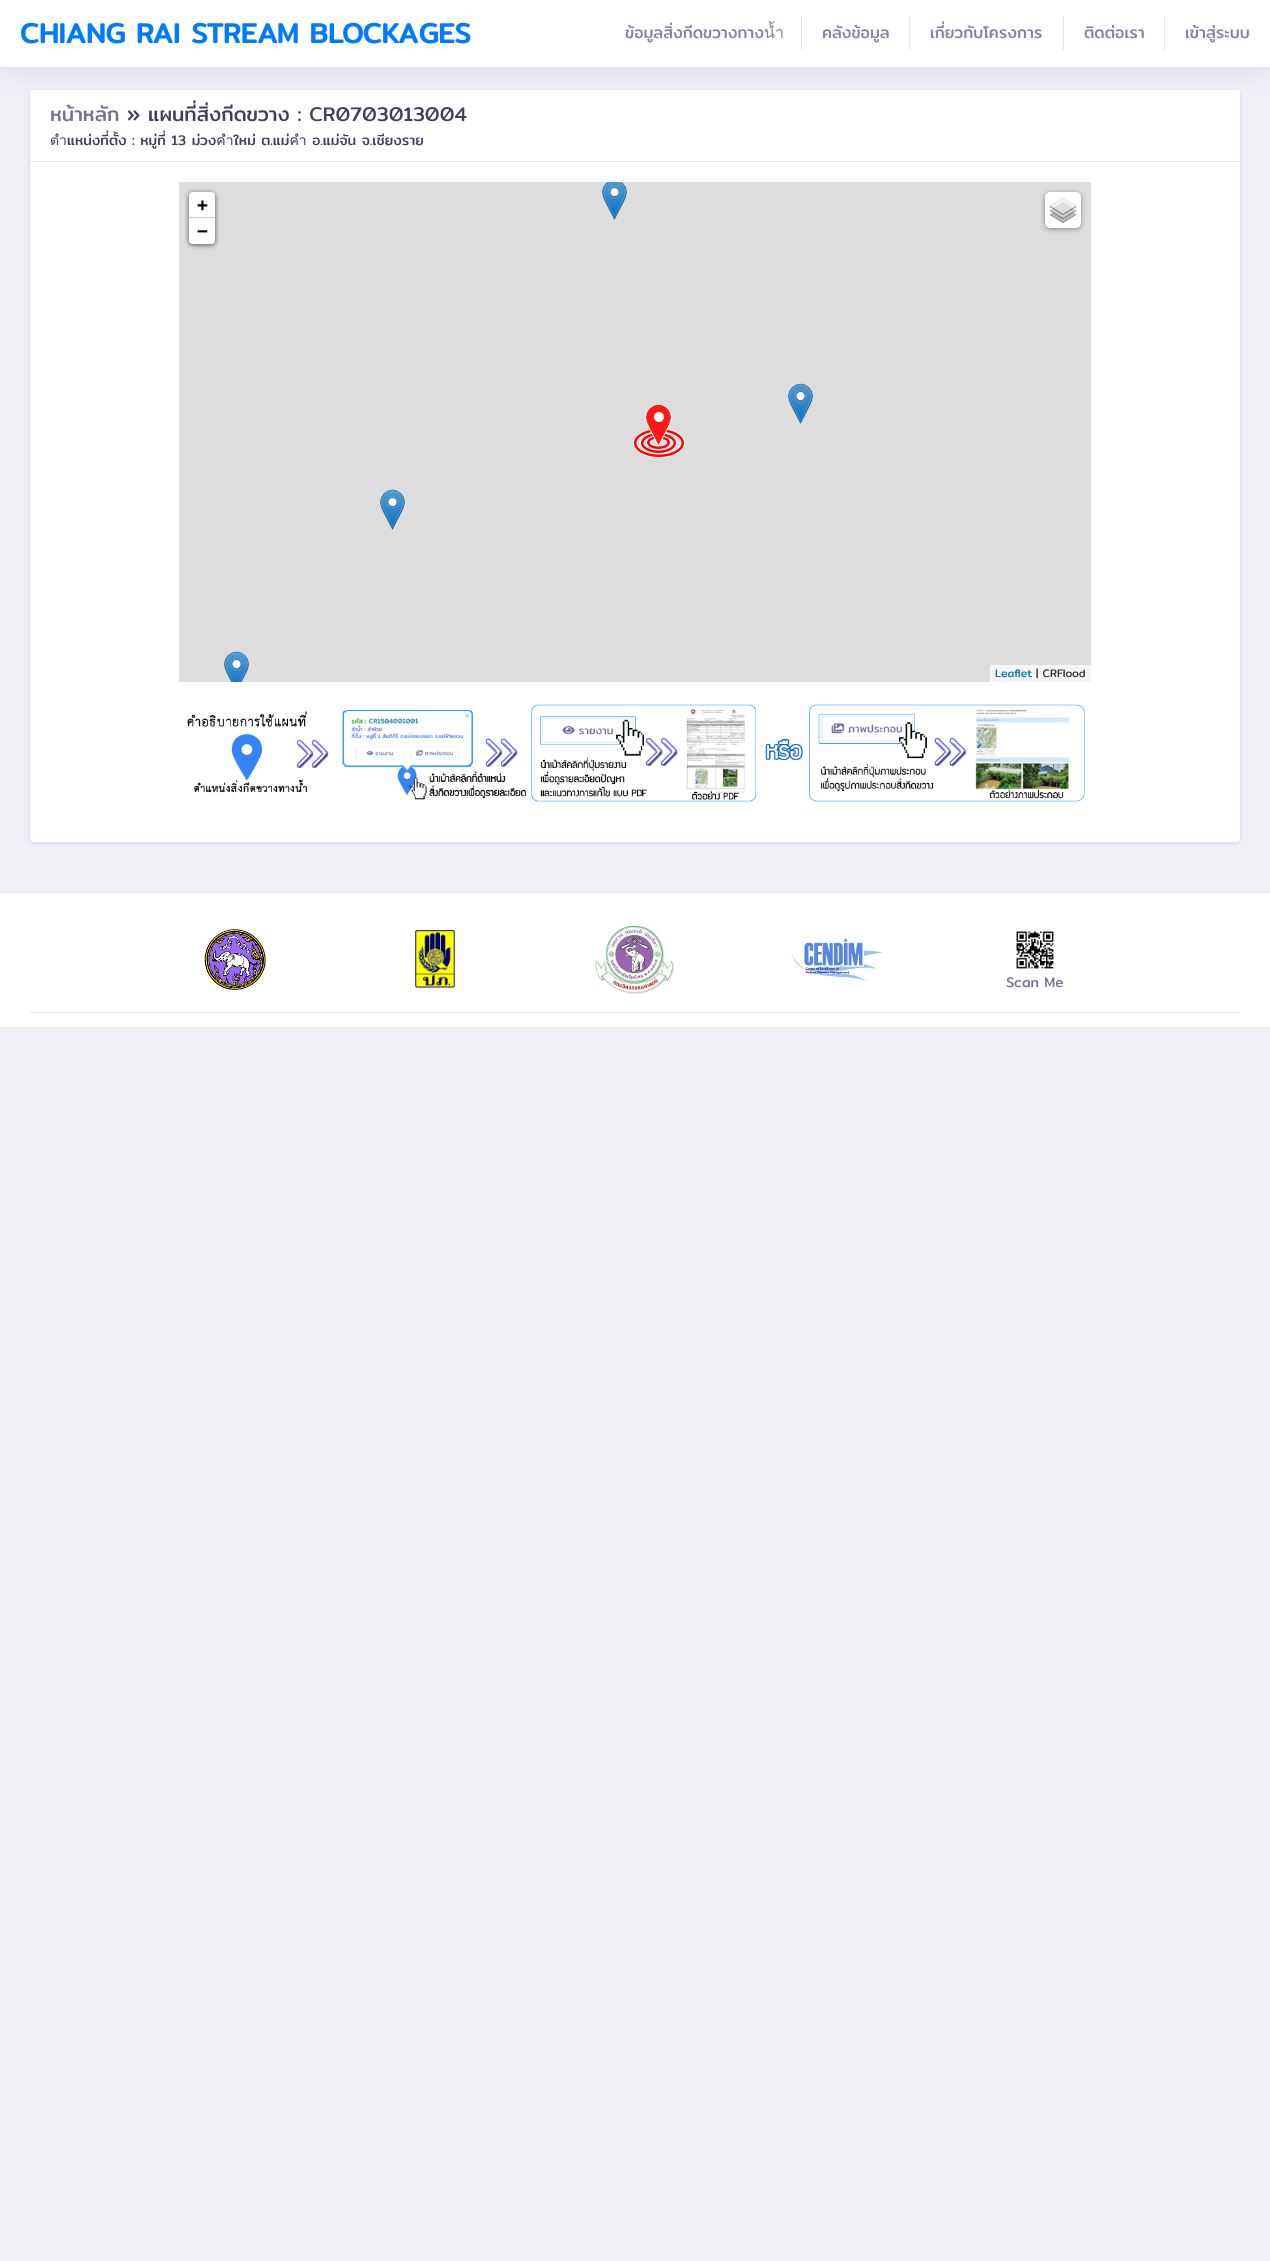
(async () => {
  const canvas = document.querySelector("canvas");
  canvas.width = 1270;
  canvas.height = 2261;
  const ctx = canvas.getContext("2d");
  ctx.miterLimit = 4;
  ctx.fontKerning = "normal";
  async function loadImage(src) {
    const img = new Image();
    img.src = src;
    await img.decode();
    return img;
  }

  ctx.fillStyle = "#efeff6";
  ctx.fillRect(0, 0, 1270, 2261);
  ctx.fillStyle = "rgba(154, 154, 204, 0.22)";
  ctx.filter = "blur(1px)";
  ctx.beginPath();
  ctx.roundRect(29, 90, 1212, 754, 5);
  ctx.fill();
  ctx.filter = "none";
  ctx.fillStyle = "#ffffff";
  ctx.beginPath();
  ctx.roundRect(30, 90, 1210, 752, 4);
  ctx.fill();
  ctx.beginPath();
  ctx.roundRect(30, 90, 1210, 72, [3, 3, 0, 0]);
  ctx.fill();
  ctx.fillStyle = "rgba(82, 63, 105, 0.13)";
  ctx.filter = "blur(14px)";
  ctx.beginPath();
  ctx.rect(0, 0, 1270, 68);
  ctx.fill();
  ctx.filter = "none";
  for (const [x, y, w, h, color] of [
    [0, 0, 1270, 67, "#ffffff"],
    [0, 67, 1270, 1, "#e6e6f2"],
    [801, 16, 1, 34, "#e6e6f2"],
    [909, 16, 1, 34, "#e6e6f2"],
    [1063, 16, 1, 34, "#e6e6f2"],
    [1164, 16, 1, 34, "#e6e6f2"],
    [30, 161, 1210, 1, "#e6e6f2"],
    [179, 182, 912, 500, "#dddddd"],
  ]) {
    ctx.fillStyle = color;
    ctx.fillRect(x, y, w, h);
  }
  ctx.drawImage(await loadImage("img/1.png"), 602, 182, 25, 38);
  ctx.drawImage(await loadImage("img/2.png"), 633, 403, 52, 55);
  ctx.drawImage(await loadImage("img/3.png"), 788, 383, 25, 41);
  ctx.drawImage(await loadImage("img/3.png"), 380, 489, 25, 41);
  ctx.drawImage(await loadImage("img/4.png"), 224, 651, 25, 31);
  ctx.fillStyle = "rgba(0, 0, 0, 0.65)";
  ctx.filter = "blur(2.5px)";
  ctx.beginPath();
  ctx.roundRect(189, 193, 26, 52, 4);
  ctx.fill();
  ctx.filter = "none";
  ctx.fillStyle = "#ffffff";
  ctx.beginPath();
  ctx.roundRect(189, 192, 26, 26, [4, 4, 0, 0]);
  ctx.fill();
  ctx.fillStyle = "#cccccc";
  ctx.fillRect(189, 217, 26, 1);
  ctx.fillStyle = "#ffffff";
  ctx.beginPath();
  ctx.roundRect(189, 218, 26, 26, [0, 0, 4, 4]);
  ctx.fill();
  ctx.fillStyle = "rgba(0, 0, 0, 0.4)";
  ctx.filter = "blur(2.5px)";
  ctx.beginPath();
  ctx.roundRect(1045, 193, 36, 36, 5);
  ctx.fill();
  ctx.filter = "none";
  ctx.fillStyle = "#ffffff";
  ctx.beginPath();
  ctx.roundRect(1045, 192, 36, 36, 5);
  ctx.fill();
  ctx.drawImage(await loadImage("img/5.png"), 1050, 198, 26, 25);
  ctx.fillStyle = "#f5f5f5";
  ctx.fillRect(990, 665, 101, 17);
  ctx.drawImage(await loadImage("img/6.png"), 187, 704, 898, 98);
  for (const [x, y, w, h, color] of [
    [0, 893, 1270, 134, "#ffffff"],
    [0, 892, 1270, 1, "#eaedef"],
    [30, 1012, 1210, 1, "#e6e6f2"],
  ]) {
    ctx.fillStyle = color;
    ctx.fillRect(x, y, w, h);
  }
  ctx.drawImage(await loadImage("img/7.png"), 204, 929, 62, 61);
  ctx.drawImage(await loadImage("img/8.png"), 415, 930, 41, 59);
  ctx.drawImage(await loadImage("img/9.png"), 595, 926, 79, 68);
  ctx.drawImage(await loadImage("img/10.png"), 790, 937, 92, 44);
  ctx.drawImage(await loadImage("img/11.png"), 1016, 931, 38, 38);
  ctx.font = "bold 28px Mitr";
  ctx.fillStyle = "#007bff";
  ctx.fillText("CHIANG RAI STREAM BLOCKAGES", 20, 43);
  ctx.font = "16px Mitr";
  ctx.fillStyle = "#82849f";
  for (const [text, x, y] of [
    ["ข้อมูลสิ่งกีดขวางทางน้ำ", 625, 38],
    ["คลังข้อมูล", 822, 38],
    ["เกี่ยวกับโครงการ", 930, 38],
    ["ติดต่อเรา", 1084, 38],
    ["เข้าสู่ระบบ", 1185, 38],
  ]) {
    ctx.fillText(text, x, y);
  }
  ctx.font = "20px Mitr";
  ctx.fillStyle = "#71748d";
  ctx.fillText("หน้าหลัก", 50, 121);
  ctx.fillStyle = "#3d405c";
  ctx.fillText("» แผนที่สิ่งกีดขวาง : CR0703013004", 127, 121);
  ctx.font = "14px Mitr";
  ctx.fillText("ตำแหน่งที่ตั้ง : หมู่ที่ 13 ม่วงคำใหม่ ต.แม่คำ อ.แม่จัน จ.เชียงราย", 50, 145);
  ctx.font = "bold 18px DejaVu Sans Mono";
  ctx.fillStyle = "#000000";
  ctx.fillText("+", 197, 211);
  ctx.fillText("−", 197, 237);
  ctx.font = "11px Mitr";
  ctx.fillStyle = "#0078a8";
  ctx.fillText("Leaflet", 995, 677);
  ctx.fillStyle = "#333333";
  ctx.fillText("| CRFlood", 1036, 677);
  ctx.font = "14px Mitr";
  ctx.fillStyle = "#71748d";
  ctx.fillText("Scan Me", 1006, 987);
})();
